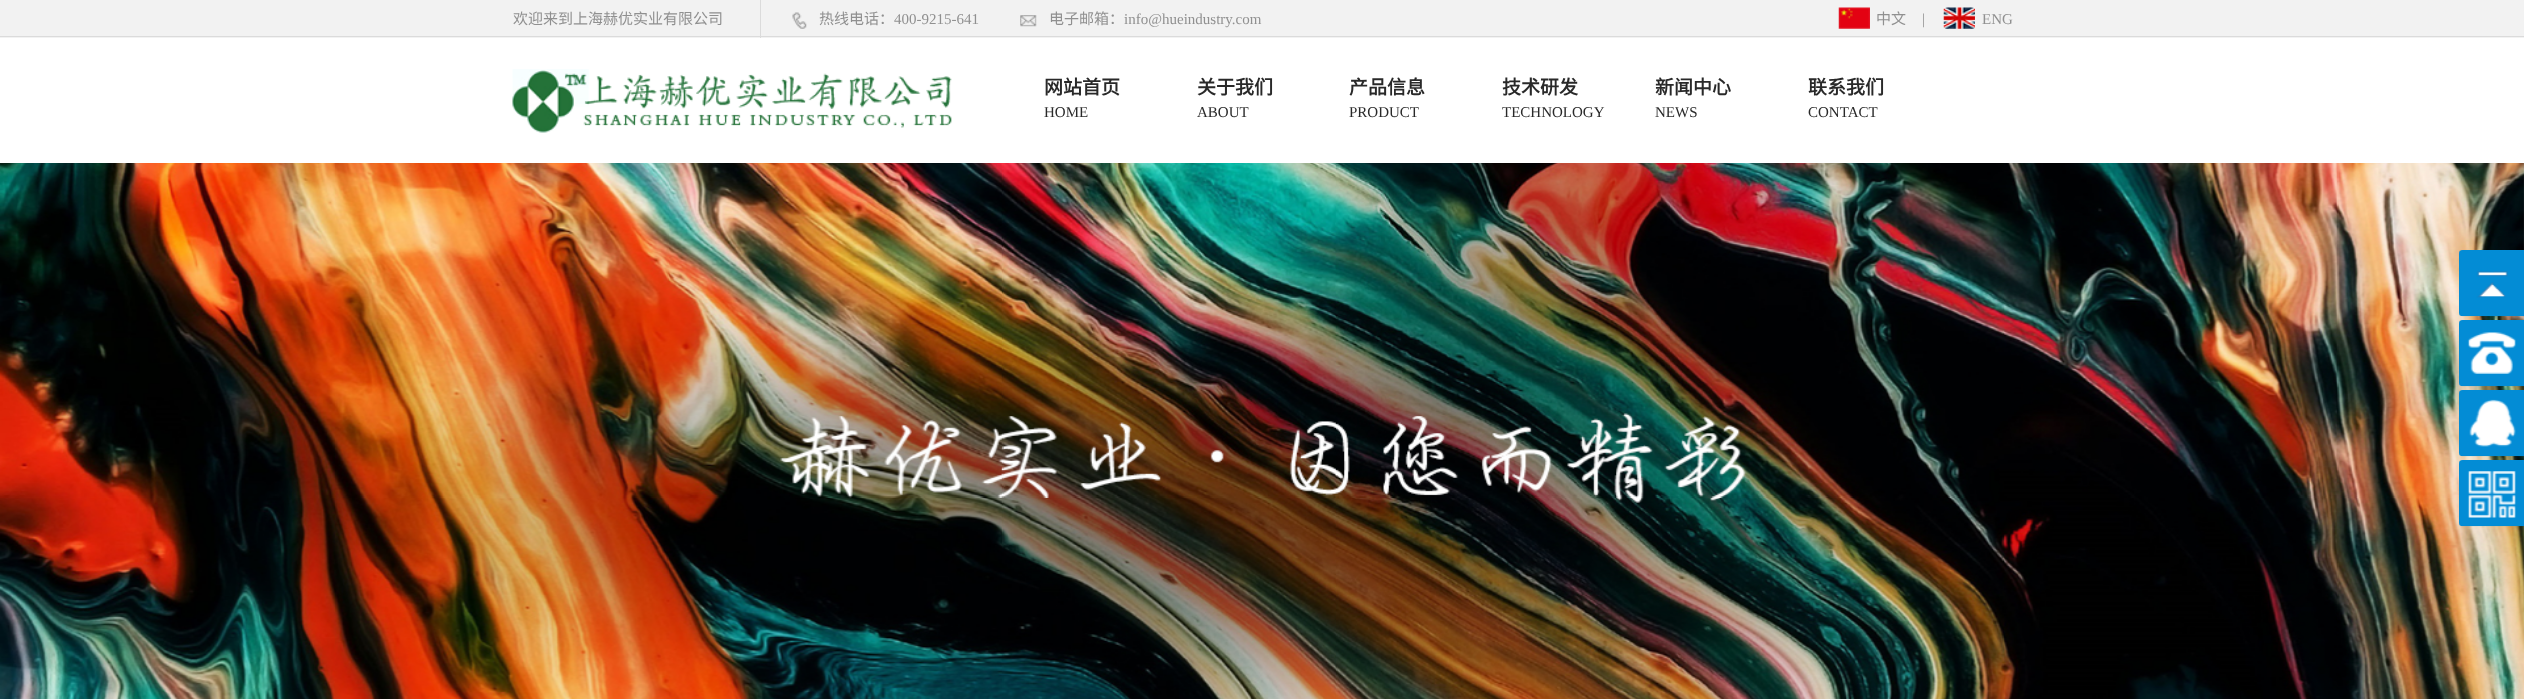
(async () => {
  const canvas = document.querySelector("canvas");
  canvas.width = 2524;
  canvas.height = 699;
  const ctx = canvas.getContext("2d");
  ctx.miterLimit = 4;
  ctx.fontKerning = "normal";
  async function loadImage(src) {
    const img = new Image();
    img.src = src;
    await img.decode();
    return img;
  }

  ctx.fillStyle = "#ffffff";
  ctx.fillRect(0, 0, 2524, 699);
  for (const [x, y, w, h, color] of [
    [0, 0, 2524, 38, "#f2f2f2"],
    [0, 36, 2524, 1, "#dbdbdb"],
    [760, 0, 1, 38, "#dbdbdb"],
  ]) {
    ctx.fillStyle = color;
    ctx.fillRect(x, y, w, h);
  }
  ctx.drawImage(await loadImage("img/1.png"), 792, 12, 15, 17);
  ctx.drawImage(await loadImage("img/2.png"), 1020, 15, 17, 12);
  ctx.drawImage(await loadImage("img/3.png"), 1838, 7, 32, 22);
  ctx.drawImage(await loadImage("img/4.png"), 1943, 7, 32, 22);
  ctx.drawImage(await loadImage("img/5.png"), 512, 69, 440, 64);
  ctx.drawImage(await loadImage("img/6.png"), 0, 163, 2524, 536);
  ctx.drawImage(await loadImage("img/7.png"), 2459, 250, 65, 67);
  ctx.drawImage(await loadImage("img/8.png"), 2459, 320, 65, 67);
  ctx.drawImage(await loadImage("img/9.png"), 2459, 390, 65, 67);
  ctx.drawImage(await loadImage("img/10.png"), 2459, 460, 65, 67);
  ctx.font = "15px Noto Sans CJK SC";
  ctx.fillStyle = "#909090";
  ctx.fillText("欢迎来到上海赫优实业有限公司", 513, 24);
  ctx.fillText("热线电话：", 819, 24);
  ctx.font = "15px Liberation Serif";
  ctx.fillText("400-9215-641", 894, 24);
  ctx.font = "15px Noto Sans CJK SC";
  ctx.fillText("电子邮箱：", 1049, 24);
  ctx.font = "15px Liberation Serif";
  ctx.fillText("info@hueindustry.com", 1124, 24);
  ctx.font = "15px Noto Sans CJK SC";
  ctx.fillText("中文", 1876, 24);
  ctx.font = "15px Liberation Serif";
  ctx.fillText("|", 1922, 24);
  ctx.fillText("ENG", 1982, 24);
  ctx.font = "bold 19px Noto Sans CJK SC";
  ctx.fillStyle = "#292929";
  ctx.fillText("网站首页", 1044, 94);
  ctx.font = "15px Liberation Serif";
  ctx.fillText("HOME", 1044, 117);
  ctx.font = "bold 19px Noto Sans CJK SC";
  ctx.fillText("关于我们", 1197, 94);
  ctx.font = "15px Liberation Serif";
  ctx.fillText("ABOUT", 1197, 117);
  ctx.font = "bold 19px Noto Sans CJK SC";
  ctx.fillText("产品信息", 1349, 94);
  ctx.font = "15px Liberation Serif";
  ctx.fillText("PRODUCT", 1349, 117);
  ctx.font = "bold 19px Noto Sans CJK SC";
  ctx.fillText("技术研发", 1502, 94);
  ctx.font = "15px Liberation Serif";
  ctx.fillText("TECHNOLOGY", 1502, 117);
  ctx.font = "bold 19px Noto Sans CJK SC";
  ctx.fillText("新闻中心", 1655, 94);
  ctx.font = "15px Liberation Serif";
  ctx.fillText("NEWS", 1655, 117);
  ctx.font = "bold 19px Noto Sans CJK SC";
  ctx.fillText("联系我们", 1808, 94);
  ctx.font = "15px Liberation Serif";
  ctx.fillText("CONTACT", 1808, 117);
})();
